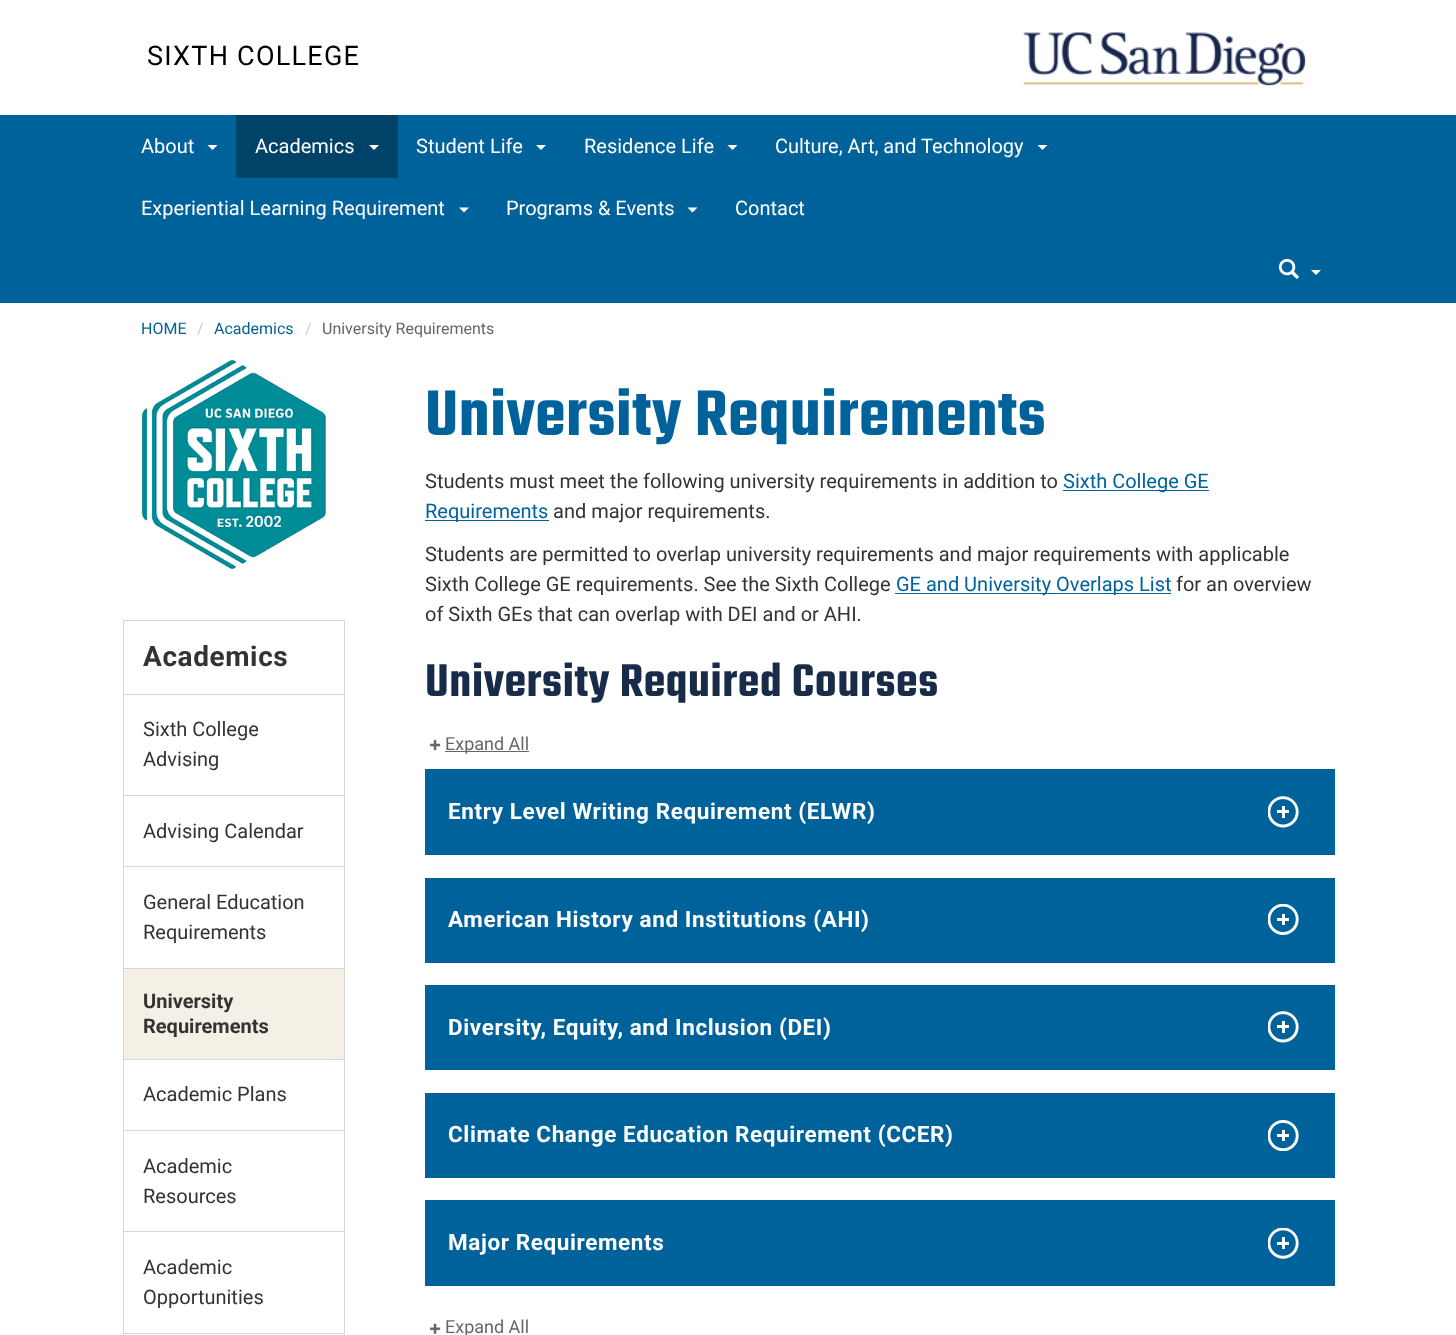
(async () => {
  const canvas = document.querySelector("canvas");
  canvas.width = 1456;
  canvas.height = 1335;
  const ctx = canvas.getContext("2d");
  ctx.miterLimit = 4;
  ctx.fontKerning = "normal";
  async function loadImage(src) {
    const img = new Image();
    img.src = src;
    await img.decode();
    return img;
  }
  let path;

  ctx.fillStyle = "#ffffff";
  ctx.fillRect(0, 0, 1456, 1335);
  ctx.drawImage(await loadImage("img/1.png"), 1023, 32, 283, 54);
  ctx.fillStyle = "#00629b";
  ctx.fillRect(0, 115, 1456, 188);
  ctx.fillStyle = "#ffffff";
  path = new Path2D("M207.5 145H217.5L212.5 150Z");
  ctx.fill(path);
  ctx.fillStyle = "#004268";
  ctx.fillRect(236, 115, 162, 63);
  ctx.fillStyle = "#ffffff";
  path = new Path2D("M369 145H379L374 150Z");
  ctx.fill(path);
  path = new Path2D("M536 145H546L541 150Z");
  ctx.fill(path);
  path = new Path2D("M727.5 145H737.5L732.5 150Z");
  ctx.fill(path);
  path = new Path2D("M1037.5 145H1047.5L1042.5 150Z");
  ctx.fill(path);
  path = new Path2D("M459 207.5H469L464 212.5Z");
  ctx.fill(path);
  path = new Path2D("M687.5 207.5H697.5L692.5 212.5Z");
  ctx.fill(path);
  ctx.drawImage(await loadImage("img/2.png"), 1278, 258, 21, 21);
  path = new Path2D("M1311 270H1321L1316 275Z");
  ctx.fill(path);
  ctx.drawImage(await loadImage("img/3.png"), 141, 360, 185, 209);
  ctx.strokeStyle = "#d8d7d7";
  ctx.strokeRect(123.5, 620.5, 221, 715);
  for (const [x, y, w, h, color] of [
    [124, 694, 220, 1, "#d8d7d7"],
    [124, 795, 220, 1, "#d8d7d7"],
    [124, 866, 220, 1, "#d8d7d7"],
    [124, 969, 220, 90, "#f5f0e6"],
    [124, 968, 220, 1, "#d8d7d7"],
    [124, 1059, 220, 1, "#d8d7d7"],
    [124, 1130, 220, 1, "#d8d7d7"],
    [124, 1231, 220, 1, "#d8d7d7"],
    [124, 1333, 220, 1, "#d8d7d7"],
    [1063, 490, 146, 1, "#00629b"],
    [425, 520, 124, 1, "#00629b"],
    [895, 593, 276, 1, "#00629b"],
  ]) {
    ctx.fillStyle = color;
    ctx.fillRect(x, y, w, h);
  }
  ctx.drawImage(await loadImage("img/4.png"), 429, 739, 12, 12);
  ctx.fillStyle = "#666666";
  ctx.fillRect(445, 751, 84, 1);
  ctx.fillStyle = "#00629b";
  ctx.fillRect(425, 769, 910, 86);
  ctx.drawImage(await loadImage("img/5.png"), 1268, 796, 31, 32);
  ctx.fillRect(425, 878, 910, 85);
  ctx.drawImage(await loadImage("img/6.png"), 1268, 904, 31, 31);
  ctx.fillRect(425, 985, 910, 85);
  ctx.drawImage(await loadImage("img/5.png"), 1268, 1011, 31, 32);
  ctx.fillRect(425, 1093, 910, 85);
  ctx.drawImage(await loadImage("img/7.png"), 1268, 1120, 31, 31);
  ctx.fillRect(425, 1200, 910, 86);
  ctx.drawImage(await loadImage("img/8.png"), 1268, 1228, 31, 31);
  ctx.drawImage(await loadImage("img/9.png"), 429, 1323, 12, 11);
  ctx.letterSpacing = "1.25px";
  ctx.font = "27px Roboto";
  ctx.fillStyle = "#000000";
  ctx.fillText("SIXTH COLLEGE", 147, 65);
  ctx.letterSpacing = "0px";
  ctx.font = "20px Roboto";
  ctx.fillStyle = "#ffffff";
  for (const [text, x, y] of [
    ["About", 141, 153],
    ["Academics", 255, 153],
    ["Student Life", 416, 153],
    ["Residence Life", 584, 153],
    ["Culture, Art, and Technology", 775, 153],
    ["Experiential Learning Requirement", 141, 215],
    ["Programs & Events", 506, 215],
    ["Contact", 735, 215],
  ]) {
    ctx.fillText(text, x, y);
  }
  ctx.font = "16px Roboto";
  ctx.fillStyle = "#00629b";
  ctx.fillText("HOME", 141, 334);
  ctx.fillStyle = "#cccccc";
  ctx.fillText("/", 197, 334);
  ctx.fillStyle = "#00629b";
  ctx.fillText("Academics", 214, 334);
  ctx.fillStyle = "#cccccc";
  ctx.fillText("/", 305, 334);
  ctx.fillStyle = "#666666";
  ctx.fillText("University Requirements", 322, 334);
  ctx.letterSpacing = "0.6px";
  ctx.font = "bold 28px Roboto";
  ctx.fillStyle = "#333333";
  ctx.fillText("Academics", 143, 666);
  ctx.letterSpacing = "0px";
  ctx.font = "20px Roboto";
  for (const [text, x, y] of [
    ["Sixth College", 143, 736],
    ["Advising", 143, 766],
    ["Advising Calendar", 143, 838],
    ["General Education", 143, 909],
    ["Requirements", 143, 939],
  ]) {
    ctx.fillText(text, x, y);
  }
  ctx.font = "bold 20px Roboto";
  ctx.fillText("University", 143, 1008);
  ctx.fillText("Requirements", 143, 1033);
  ctx.font = "20px Roboto";
  for (const [text, x, y] of [
    ["Academic Plans", 143, 1101],
    ["Academic", 143, 1173],
    ["Resources", 143, 1203],
    ["Academic", 143, 1274],
    ["Opportunities", 143, 1304],
  ]) {
    ctx.fillText(text, x, y);
  }
  ctx.letterSpacing = "0.6px";
  ctx.font = "600 70px Teko";
  ctx.fillStyle = "#00629b";
  ctx.fillText("University Requirements", 425, 435);
  ctx.letterSpacing = "0px";
  ctx.font = "20px Roboto";
  ctx.fillStyle = "#333333";
  ctx.fillText("Students must meet the following university requirements in addition to", 425, 488);
  ctx.fillStyle = "#00629b";
  ctx.fillText("Sixth College GE", 1063, 488);
  ctx.fillText("Requirements", 425, 518);
  ctx.fillStyle = "#333333";
  for (const [text, x, y] of [
    ["and major requirements.", 553, 518],
    ["Students are permitted to overlap university requirements and major requirements with applicable", 425, 561],
    ["Sixth College GE requirements. See the Sixth College", 425, 591],
  ]) {
    ctx.fillText(text, x, y);
  }
  ctx.fillStyle = "#00629b";
  ctx.fillText("GE and University Overlaps List", 896, 591);
  ctx.fillStyle = "#333333";
  ctx.fillText("for an overview", 1176, 591);
  ctx.fillText("of Sixth GEs that can overlap with DEI and or AHI.", 425, 621);
  ctx.letterSpacing = "0.6px";
  ctx.font = "600 50px Teko";
  ctx.fillStyle = "#182b49";
  ctx.fillText("University Required Courses", 425, 696);
  ctx.letterSpacing = "0px";
  ctx.font = "18px Roboto";
  ctx.fillStyle = "#666666";
  ctx.fillText("Expand All", 445, 750);
  ctx.letterSpacing = "0.6px";
  ctx.font = "bold 22.5px Roboto";
  ctx.fillStyle = "#ffffff";
  for (const [text, x, y] of [
    ["Entry Level Writing Requirement (ELWR)", 448, 819],
    ["American History and Institutions (AHI)", 448, 927],
    ["Diversity, Equity, and Inclusion (DEI)", 448, 1035],
    ["Climate Change Education Requirement (CCER)", 448, 1142],
    ["Major Requirements", 448, 1250],
  ]) {
    ctx.fillText(text, x, y);
  }
  ctx.letterSpacing = "0px";
  ctx.font = "18px Roboto";
  ctx.fillStyle = "#666666";
  ctx.fillText("Expand All", 445, 1333);
})();
